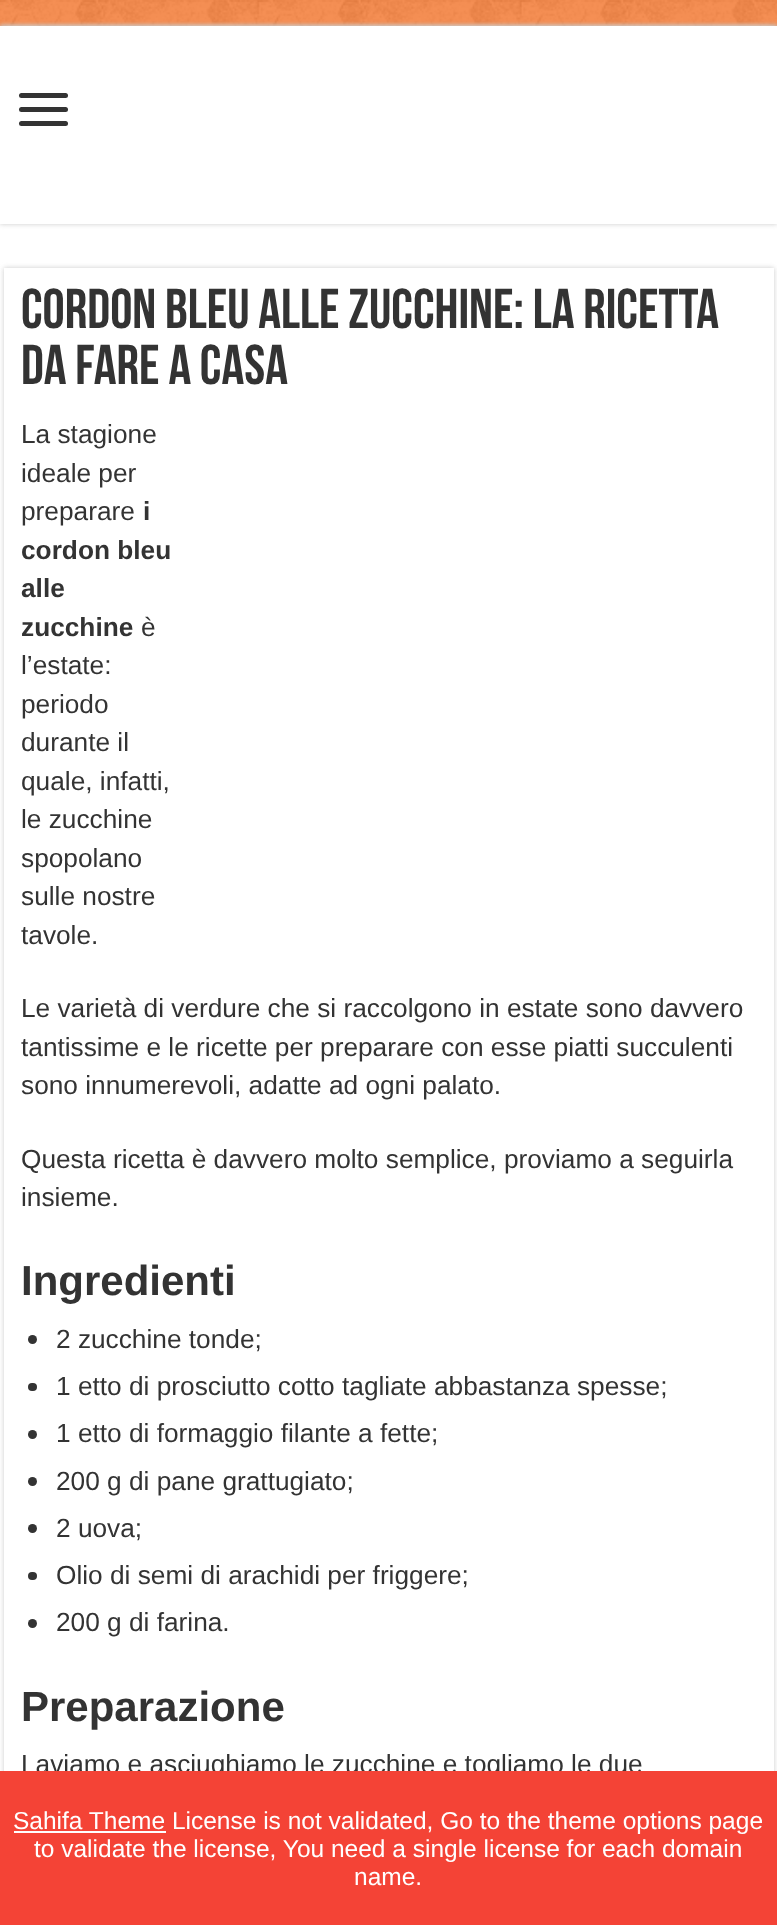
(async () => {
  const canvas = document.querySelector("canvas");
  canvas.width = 777;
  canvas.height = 1925;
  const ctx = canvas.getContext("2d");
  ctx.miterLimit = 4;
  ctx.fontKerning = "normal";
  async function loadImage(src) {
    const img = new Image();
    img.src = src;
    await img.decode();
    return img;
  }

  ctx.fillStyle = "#f15800";
  ctx.fillRect(0, 0, 777, 1925);
  ctx.drawImage(await loadImage("img/1.png"), 0, 0, 777, 26);
  ctx.fillStyle = "#cacaca";
  ctx.filter = "blur(2.5px)";
  ctx.beginPath();
  ctx.rect(0, 26, 777, 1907);
  ctx.fill();
  ctx.filter = "none";
  ctx.fillStyle = "#ffffff";
  ctx.fillRect(0, 224, 777, 1547);
  ctx.fillStyle = "#cacaca";
  ctx.filter = "blur(2.5px)";
  ctx.beginPath();
  ctx.rect(0, 26, 777, 198);
  ctx.fill();
  ctx.filter = "none";
  ctx.fillStyle = "#ffffff";
  ctx.fillRect(0, 26, 777, 198);
  ctx.fillStyle = "#333333";
  ctx.beginPath();
  ctx.roundRect(19, 93, 49, 5, 2.5);
  ctx.fill();
  ctx.beginPath();
  ctx.roundRect(19, 107, 49, 5, 2.5);
  ctx.fill();
  ctx.beginPath();
  ctx.roundRect(19, 121, 49, 5, 2.5);
  ctx.fill();
  ctx.fillStyle = "#cacaca";
  ctx.filter = "blur(2.5px)";
  ctx.beginPath();
  ctx.rect(4, 268, 770, 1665);
  ctx.fill();
  ctx.filter = "none";
  ctx.fillStyle = "#ffffff";
  ctx.fillRect(4, 268, 770, 1503);
  ctx.fillStyle = "#333333";
  ctx.beginPath();
  ctx.arc(32.5, 1339.5, 4.5, 0, Math.PI * 2);
  ctx.fill();
  ctx.beginPath();
  ctx.roundRect(28, 1383, 9, 8, 4);
  ctx.fill();
  ctx.beginPath();
  ctx.arc(32.5, 1434.5, 4.5, 0, Math.PI * 2);
  ctx.fill();
  ctx.beginPath();
  ctx.arc(32.5, 1481.5, 4.5, 0, Math.PI * 2);
  ctx.fill();
  ctx.beginPath();
  ctx.arc(32.5, 1528.5, 4.5, 0, Math.PI * 2);
  ctx.fill();
  ctx.beginPath();
  ctx.roundRect(28, 1572, 9, 8, 4);
  ctx.fill();
  ctx.beginPath();
  ctx.arc(32.5, 1623.5, 4.5, 0, Math.PI * 2);
  ctx.fill();
  ctx.font = "bold 56px Bebas Neue";
  ctx.fillText("Cordon Bleu alle zucchine: la ricetta", 21, 328);
  ctx.fillText("da fare a casa", 21, 384);
  ctx.font = "26.25px Liberation Sans";
  for (const [text, x, y] of [
    ["La stagione", 21, 443],
    ["ideale per", 21, 482],
    ["preparare", 21, 520],
  ]) {
    ctx.fillText(text, x, y);
  }
  ctx.font = "bold 26.25px Liberation Sans";
  for (const [text, x, y] of [
    ["i", 143, 520],
    ["cordon bleu", 21, 559],
    ["alle", 21, 597],
    ["zucchine", 21, 636],
  ]) {
    ctx.fillText(text, x, y);
  }
  ctx.font = "26.25px Liberation Sans";
  for (const [text, x, y] of [
    ["è", 141, 636],
    ["l’estate:", 21, 674],
    ["periodo", 21, 713],
    ["durante il", 21, 751],
    ["quale, infatti,", 21, 790],
    ["le zucchine", 21, 828],
    ["spopolano", 21, 867],
    ["sulle nostre", 21, 905],
    ["tavole.", 21, 944],
    ["Le varietà di verdure che si raccolgono in estate sono davvero", 21, 1017],
    ["tantissime e le ricette per preparare con esse piatti succulenti", 21, 1056],
    ["sono innumerevoli, adatte ad ogni palato.", 21, 1094],
    ["Questa ricetta è davvero molto semplice, proviamo a seguirla", 21, 1168],
    ["insieme.", 21, 1206],
  ]) {
    ctx.fillText(text, x, y);
  }
  ctx.font = "bold 42px Liberation Sans";
  ctx.fillText("Ingredienti", 21, 1295);
  ctx.font = "26.25px Liberation Sans";
  for (const [text, x, y] of [
    ["2 zucchine tonde;", 56, 1348],
    ["1 etto di prosciutto cotto tagliate abbastanza spesse;", 56, 1395],
    ["1 etto di formaggio filante a fette;", 56, 1442],
    ["200 g di pane grattugiato;", 56, 1490],
    ["2 uova;", 56, 1537],
    ["Olio di semi di arachidi per friggere;", 56, 1584],
    ["200 g di farina.", 56, 1631],
  ]) {
    ctx.fillText(text, x, y);
  }
  ctx.font = "bold 42px Liberation Sans";
  ctx.fillText("Preparazione", 21, 1721);
  ctx.font = "26.25px Liberation Sans";
  ctx.fillText("Laviamo e asciughiamo le zucchine e togliamo le due", 21, 1773);
  ctx.fillStyle = "#f44336";
  ctx.fillRect(0, 1771, 777, 154);
  ctx.fillStyle = "#ffffff";
  ctx.fillRect(14, 1831, 152, 2);
  ctx.font = "24.5px Liberation Sans";
  for (const [text, x, y] of [
    ["Sahifa Theme License is not validated, Go to the theme options page", 13, 1829],
    ["to validate the license, You need a single license for each domain", 34, 1857],
    ["name.", 354, 1885],
  ]) {
    ctx.fillText(text, x, y);
  }
})();
